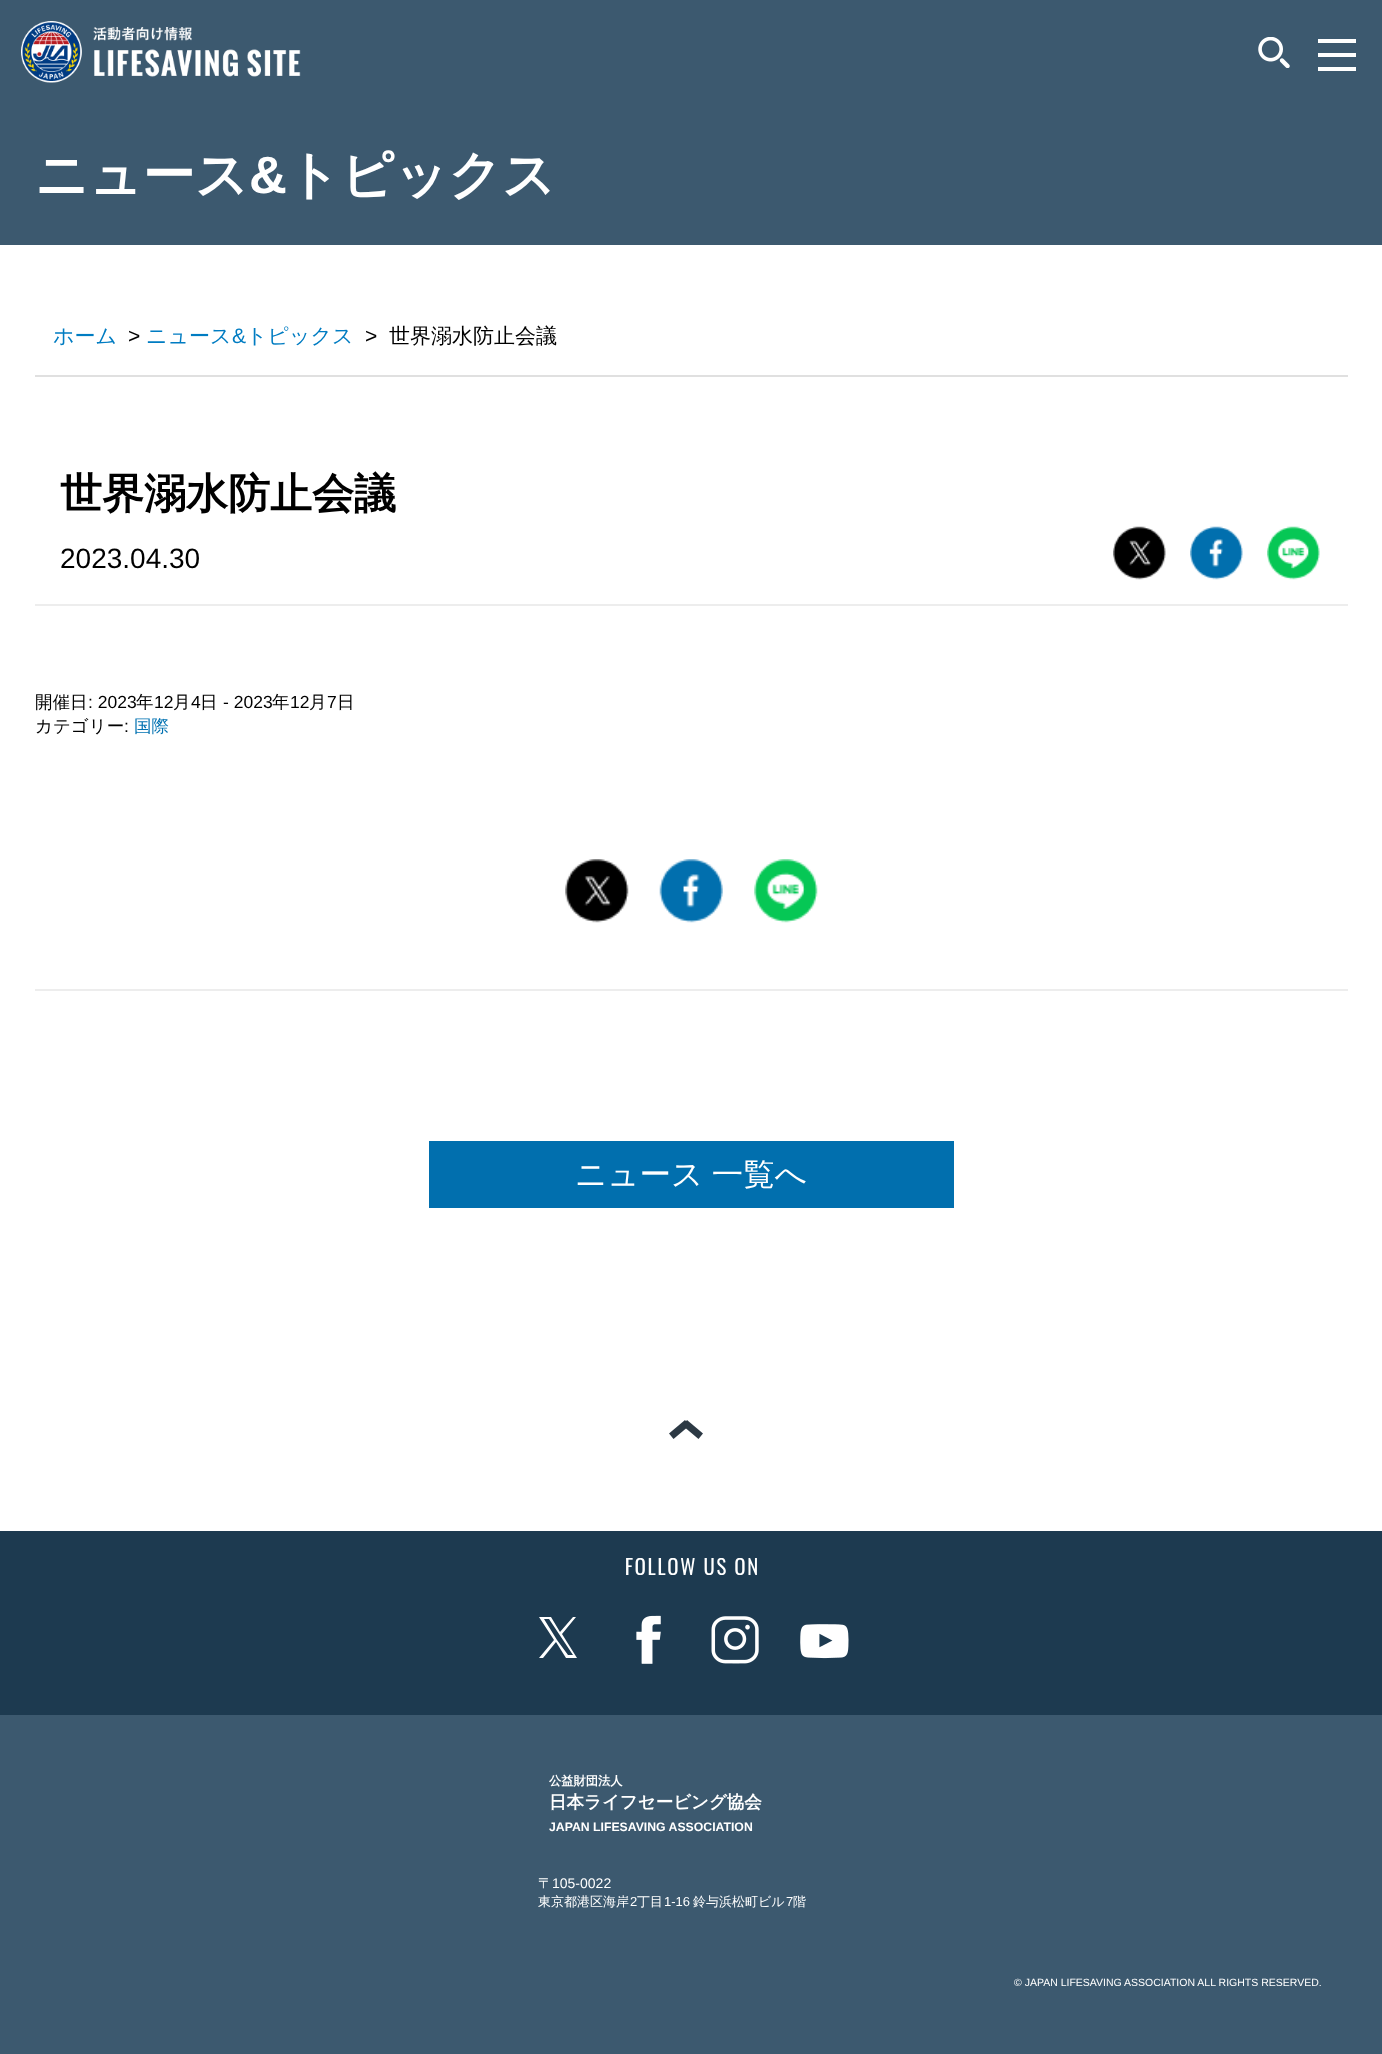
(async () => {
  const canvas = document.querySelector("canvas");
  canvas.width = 1382;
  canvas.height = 2054;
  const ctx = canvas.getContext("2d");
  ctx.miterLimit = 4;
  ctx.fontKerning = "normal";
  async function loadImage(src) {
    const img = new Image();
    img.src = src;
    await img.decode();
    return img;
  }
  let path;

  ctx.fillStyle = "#3c596f";
  ctx.fillRect(0, 0, 1382, 2054);
  ctx.fillStyle = "#ffffff";
  ctx.fillRect(0, 245, 1382, 1286);
  ctx.drawImage(await loadImage("img/1.png"), 21, 21, 280, 62);
  ctx.drawImage(await loadImage("img/2.png"), 1258, 37, 32, 31);
  for (const [x, y, w, h, color] of [
    [1318, 53, 38, 4, "#ffffff"],
    [1318, 39, 38, 4, "#ffffff"],
    [1318, 67, 38, 4, "#ffffff"],
    [35, 375, 1313, 2, "#e0e0e0"],
    [35, 604, 1313, 2, "#ededed"],
  ]) {
    ctx.fillStyle = color;
    ctx.fillRect(x, y, w, h);
  }
  ctx.drawImage(await loadImage("img/3.png"), 1113, 526, 53, 54);
  ctx.drawImage(await loadImage("img/4.png"), 1190, 526, 53, 54);
  ctx.drawImage(await loadImage("img/5.png"), 1267, 526, 53, 54);
  ctx.fillRect(35, 989, 1313, 2);
  ctx.drawImage(await loadImage("img/6.png"), 565, 859, 64, 64);
  ctx.drawImage(await loadImage("img/7.png"), 659, 859, 64, 64);
  ctx.drawImage(await loadImage("img/8.png"), 754, 859, 64, 64);
  ctx.fillStyle = "#016fae";
  ctx.fillRect(429, 1141, 525, 67);
  ctx.fillStyle = "#1d3a50";
  ctx.fillRect(0, 1531, 1382, 184);
  ctx.fillStyle = "#2c3944";
  path = new Path2D("M669 1433.5L685 1420L689.5 1425.5L673.5 1439Z");
  ctx.fill(path);
  path = new Path2D("M687 1420L703 1433.5L698.5 1439L682.5 1425.5Z");
  ctx.fill(path);
  ctx.drawImage(await loadImage("img/9.png"), 626, 1558, 131, 17);
  ctx.fillStyle = "#ffffff";
  path = new Path2D("M562 1634L576 1617H573L560 1632L551 1617H539L554 1640L539 1658H543L556 1642L566 1658H577ZM557 1640L544 1619H549L573 1655H568Z");
  ctx.fill(path);
  ctx.drawImage(await loadImage("img/10.png"), 636, 1615, 25, 49);
  ctx.drawImage(await loadImage("img/11.png"), 711, 1616, 48, 48);
  ctx.drawImage(await loadImage("img/12.png"), 800, 1624, 49, 35);
  ctx.font = "bold 52.5px WenQuanYi Zen Hei";
  ctx.fillText("ニュース", 35, 193);
  ctx.font = "bold 52.5px Liberation Sans";
  ctx.fillText("&", 249, 193);
  ctx.font = "bold 52.5px WenQuanYi Zen Hei";
  ctx.fillText("トピックス", 287, 193);
  ctx.font = "500 21px WenQuanYi Zen Hei";
  ctx.fillStyle = "#007cc2";
  ctx.fillText("ホーム", 53, 343);
  ctx.font = "21px Liberation Sans";
  ctx.fillStyle = "#000000";
  ctx.fillText(">", 128, 343);
  ctx.font = "500 21px WenQuanYi Zen Hei";
  ctx.fillStyle = "#007cc2";
  ctx.fillText("ニュース", 146, 343);
  ctx.font = "21px Liberation Sans";
  ctx.fillText("&", 232, 343);
  ctx.font = "500 21px WenQuanYi Zen Hei";
  ctx.fillText("トピックス", 246, 343);
  ctx.font = "21px Liberation Sans";
  ctx.fillStyle = "#000000";
  ctx.fillText(">", 365, 343);
  ctx.font = "500 21px WenQuanYi Zen Hei";
  ctx.fillText("世界溺水防止会議", 389, 343);
  ctx.font = "bold 42px WenQuanYi Zen Hei";
  ctx.fillText("世界溺水防止会議", 60, 508);
  ctx.font = "28px Liberation Sans";
  ctx.fillText("2023.04.30", 60, 568);
  ctx.font = "500 17.5px WenQuanYi Zen Hei";
  ctx.fillText("開催日", 35, 708);
  ctx.font = "17.5px Liberation Sans";
  ctx.fillText(": 2023", 88, 708);
  ctx.font = "500 17.5px WenQuanYi Zen Hei";
  ctx.fillText("年", 136, 708);
  ctx.font = "17.5px Liberation Sans";
  ctx.fillText("12", 154, 708);
  ctx.font = "500 17.5px WenQuanYi Zen Hei";
  ctx.fillText("月", 173, 708);
  ctx.font = "17.5px Liberation Sans";
  ctx.fillText("4", 191, 708);
  ctx.font = "500 17.5px WenQuanYi Zen Hei";
  ctx.fillText("日", 200, 708);
  ctx.font = "17.5px Liberation Sans";
  ctx.fillText("- 2023", 223, 708);
  ctx.font = "500 17.5px WenQuanYi Zen Hei";
  ctx.fillText("年", 272, 708);
  ctx.font = "17.5px Liberation Sans";
  ctx.fillText("12", 290, 708);
  ctx.font = "500 17.5px WenQuanYi Zen Hei";
  ctx.fillText("月", 309, 708);
  ctx.font = "17.5px Liberation Sans";
  ctx.fillText("7", 327, 708);
  ctx.font = "500 17.5px WenQuanYi Zen Hei";
  ctx.fillText("日", 337, 708);
  ctx.fillText("カテゴリー", 35, 732);
  ctx.font = "17.5px Liberation Sans";
  ctx.fillText(":", 124, 732);
  ctx.font = "500 17.5px WenQuanYi Zen Hei";
  ctx.fillStyle = "#0071b1";
  ctx.fillText("国際", 134, 732);
  ctx.wordSpacing = "-1px";
  ctx.font = "500 31.5px WenQuanYi Zen Hei";
  ctx.fillStyle = "#ffffff";
  ctx.fillText("ニュース 一覧へ", 575, 1185);
  ctx.wordSpacing = "0px";
  ctx.font = "bold 12.25px WenQuanYi Zen Hei";
  ctx.fillText("公益財団法人", 549, 1785);
  ctx.font = "bold 17.5px WenQuanYi Zen Hei";
  ctx.fillText("日本ライフセービング協会", 549, 1808);
  ctx.font = "bold 12.25px Liberation Sans";
  ctx.fillText("JAPAN LIFESAVING ASSOCIATION", 549, 1831);
  ctx.font = "500 14px WenQuanYi Zen Hei";
  ctx.fillText("〒", 538, 1888);
  ctx.font = "14px Liberation Sans";
  ctx.fillText("105-0022", 552, 1888);
  ctx.font = "500 13px WenQuanYi Zen Hei";
  ctx.fillText("東京都港区海岸", 538, 1906);
  ctx.font = "13px Liberation Sans";
  ctx.fillText("2", 630, 1906);
  ctx.font = "500 13px WenQuanYi Zen Hei";
  ctx.fillText("丁目", 637, 1906);
  ctx.font = "13px Liberation Sans";
  ctx.fillText("1-16", 664, 1906);
  ctx.font = "500 13px WenQuanYi Zen Hei";
  ctx.fillText("鈴与浜松町ビル", 693, 1906);
  ctx.font = "13px Liberation Sans";
  ctx.fillText("7", 786, 1906);
  ctx.font = "500 13px WenQuanYi Zen Hei";
  ctx.fillText("階", 793, 1906);
  ctx.font = "10.5px Liberation Sans";
  ctx.fillText("© JAPAN LIFESAVING ASSOCIATION ALL RIGHTS RESERVED.", 1014, 1986);
})();
